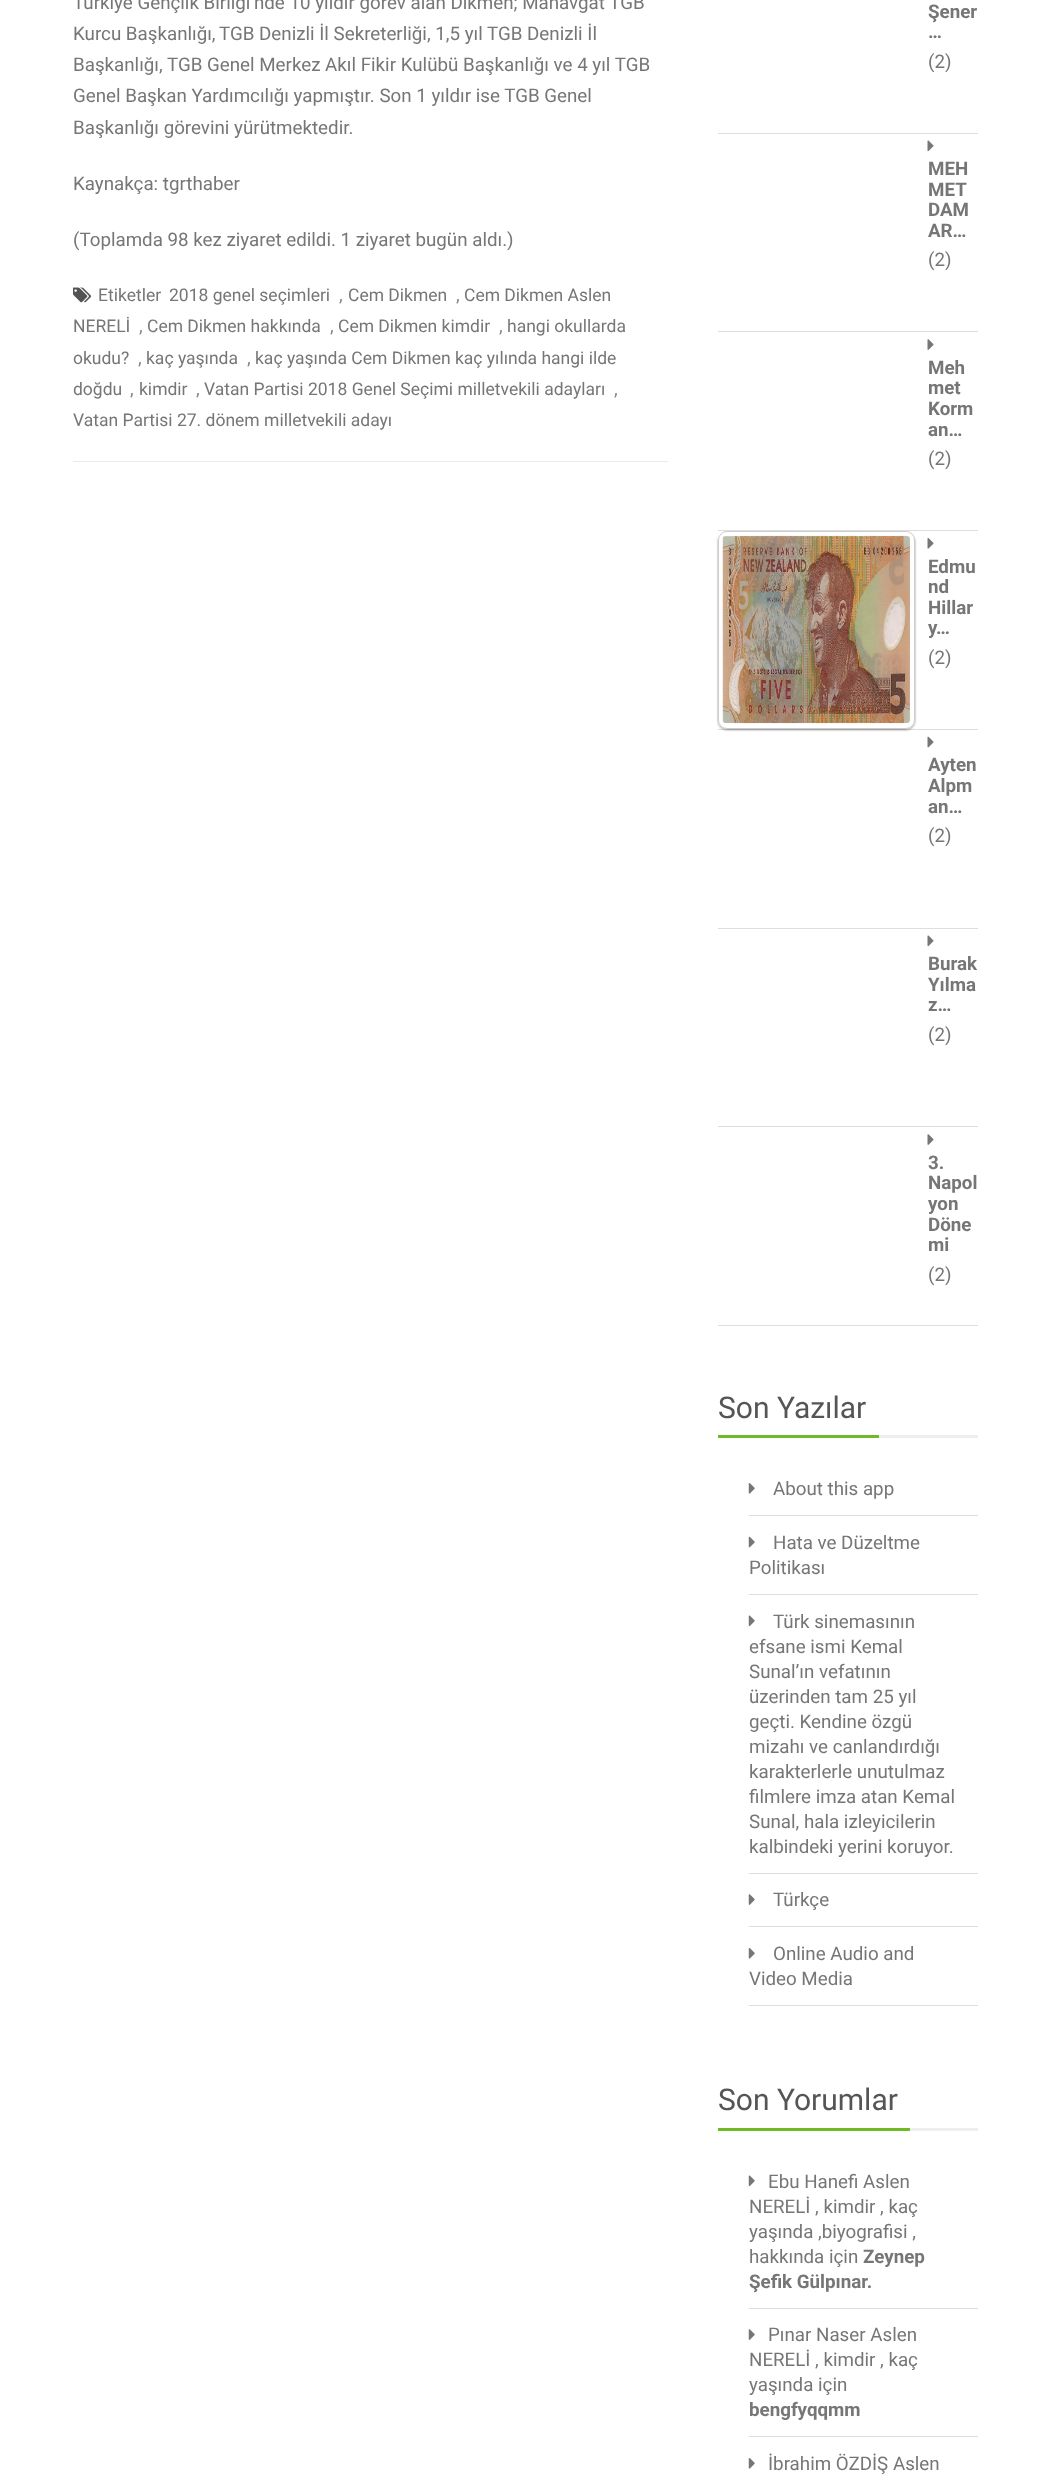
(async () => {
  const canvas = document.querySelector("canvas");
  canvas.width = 1050;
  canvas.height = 2477;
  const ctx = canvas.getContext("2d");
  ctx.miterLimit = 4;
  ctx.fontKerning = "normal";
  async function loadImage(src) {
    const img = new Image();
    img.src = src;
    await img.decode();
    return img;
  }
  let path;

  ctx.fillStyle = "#ffffff";
  ctx.fillRect(0, 0, 1050, 2477);
  ctx.fillStyle = "#ebeaea";
  ctx.fillRect(73, 461, 595, 1);
  ctx.drawImage(await loadImage("img/1.png"), 73, 287, 18, 16);
  ctx.fillStyle = "#dedede";
  ctx.fillRect(718, 133, 260, 1);
  ctx.fillRect(718, 331, 260, 1);
  ctx.drawImage(await loadImage("img/2.png"), 927, 140, 7, 12);
  ctx.fillRect(718, 530, 260, 1);
  ctx.drawImage(await loadImage("img/3.png"), 927, 339, 7, 11);
  ctx.fillRect(718, 729, 260, 1);
  ctx.save();
  path = new Path2D("M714 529H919V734H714ZM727 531H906C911 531 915 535 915 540V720C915 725 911 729 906 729H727C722 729 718 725 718 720V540C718 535 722 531 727 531Z");
  ctx.clip(path, "evenodd");
  ctx.fillStyle = "rgba(0, 0, 0, 0.4)";
  ctx.filter = "blur(1px)";
  ctx.beginPath();
  ctx.roundRect(718, 533, 197, 197, 9);
  ctx.fill();
  ctx.filter = "none";
  ctx.restore();
  ctx.beginPath();
  ctx.roundRect(718.5, 531.5, 196, 197, 8.5);
  ctx.strokeStyle = "#cccccc";
  ctx.stroke();
  ctx.drawImage(await loadImage("img/4.png"), 722, 535, 188, 189);
  ctx.drawImage(await loadImage("img/5.png"), 927, 538, 7, 11);
  ctx.fillRect(718, 928, 260, 1);
  ctx.drawImage(await loadImage("img/6.png"), 927, 736, 7, 12);
  ctx.fillRect(718, 1126, 260, 1);
  ctx.drawImage(await loadImage("img/2.png"), 927, 935, 7, 12);
  ctx.fillRect(718, 1325, 260, 1);
  ctx.drawImage(await loadImage("img/3.png"), 927, 1134, 7, 11);
  for (const [x, y, w, h, color] of [
    [879, 1435, 99, 3, "#eeeeee"],
    [718, 1435, 161, 3, "#6ebb25"],
    [749, 1515, 229, 1, "#dedede"],
  ]) {
    ctx.fillStyle = color;
    ctx.fillRect(x, y, w, h);
  }
  ctx.drawImage(await loadImage("img/7.png"), 748, 1483, 7, 11);
  ctx.fillRect(749, 1594, 229, 1);
  ctx.drawImage(await loadImage("img/8.png"), 748, 1536, 7, 12);
  ctx.fillRect(749, 1873, 229, 1);
  ctx.drawImage(await loadImage("img/9.png"), 748, 1615, 7, 12);
  ctx.fillRect(749, 1926, 229, 1);
  ctx.drawImage(await loadImage("img/10.png"), 748, 1894, 7, 11);
  ctx.fillRect(749, 2005, 229, 1);
  ctx.drawImage(await loadImage("img/7.png"), 748, 1948, 7, 11);
  for (const [x, y, w, h, color] of [
    [910, 2128, 68, 3, "#eeeeee"],
    [718, 2128, 192, 3, "#6ebb25"],
    [749, 2308, 229, 1, "#dedede"],
  ]) {
    ctx.fillStyle = color;
    ctx.fillRect(x, y, w, h);
  }
  ctx.drawImage(await loadImage("img/9.png"), 748, 2175, 7, 12);
  ctx.fillRect(749, 2436, 229, 1);
  ctx.drawImage(await loadImage("img/10.png"), 748, 2329, 7, 11);
  ctx.drawImage(await loadImage("img/7.png"), 748, 2458, 7, 11);
  ctx.font = "18.75px Roboto";
  ctx.fillStyle = "#767676";
  for (const [text, x, y] of [
    ["Türkiye Gençlik Birliği’nde 10 yıldır görev alan Dikmen; Manavgat TGB", 73, 9],
    ["Kurcu Başkanlığı,", 73, 40],
    ["TGB Denizli İl Sekreterliği, 1,5 yıl TGB Denizli İl", 219, 40],
    ["Başkanlığı, TGB Genel Merkez Akıl Fikir Kulübü Başkanlığı ve 4 yıl TGB", 73, 71],
    ["Genel Başkan Yardımcılığı yapmıştır. Son 1 yıldır ise TGB Genel", 73, 102],
    ["Başkanlığı görevini yürütmektedir.", 73, 134],
    ["Kaynakça: tgrthaber", 73, 190],
    ["(Toplamda 98 kez ziyaret edildi. 1 ziyaret bugün aldı.)", 73, 246],
  ]) {
    ctx.fillText(text, x, y);
  }
  ctx.font = "17.5px Roboto";
  ctx.fillText("Etiketler", 98, 301);
  ctx.fillText("2018 genel seçimleri", 169, 301);
  ctx.font = "18.75px Roboto";
  ctx.fillStyle = "#868689";
  ctx.fillText(",", 339, 301);
  ctx.font = "17.5px Roboto";
  ctx.fillStyle = "#767676";
  ctx.fillText("Cem Dikmen", 348, 301);
  ctx.font = "18.75px Roboto";
  ctx.fillStyle = "#868689";
  ctx.fillText(",", 456, 301);
  ctx.font = "17.5px Roboto";
  ctx.fillStyle = "#767676";
  ctx.fillText("Cem Dikmen Aslen", 464, 301);
  ctx.fillText("NERELİ", 73, 332);
  ctx.font = "18.75px Roboto";
  ctx.fillStyle = "#868689";
  ctx.fillText(",", 139, 332);
  ctx.font = "17.5px Roboto";
  ctx.fillStyle = "#767676";
  ctx.fillText("Cem Dikmen hakkında", 147, 332);
  ctx.font = "18.75px Roboto";
  ctx.fillStyle = "#868689";
  ctx.fillText(",", 330, 332);
  ctx.font = "17.5px Roboto";
  ctx.fillStyle = "#767676";
  ctx.fillText("Cem Dikmen kimdir", 338, 332);
  ctx.font = "18.75px Roboto";
  ctx.fillStyle = "#868689";
  ctx.fillText(",", 499, 332);
  ctx.font = "17.5px Roboto";
  ctx.fillStyle = "#767676";
  ctx.fillText("hangi okullarda", 507, 332);
  ctx.fillText("okudu?", 73, 364);
  ctx.font = "18.75px Roboto";
  ctx.fillStyle = "#868689";
  ctx.fillText(",", 138, 364);
  ctx.font = "17.5px Roboto";
  ctx.fillStyle = "#767676";
  ctx.fillText("kaç yaşında", 146, 364);
  ctx.font = "18.75px Roboto";
  ctx.fillStyle = "#868689";
  ctx.fillText(",", 247, 364);
  ctx.font = "17.5px Roboto";
  ctx.fillStyle = "#767676";
  ctx.fillText("kaç yaşında Cem Dikmen kaç yılında hangi ilde", 255, 364);
  ctx.fillText("doğdu", 73, 395);
  ctx.font = "18.75px Roboto";
  ctx.fillStyle = "#868689";
  ctx.fillText(",", 130, 395);
  ctx.font = "17.5px Roboto";
  ctx.fillStyle = "#767676";
  ctx.fillText("kimdir", 139, 395);
  ctx.font = "18.75px Roboto";
  ctx.fillStyle = "#868689";
  ctx.fillText(",", 196, 395);
  ctx.font = "17.5px Roboto";
  ctx.fillStyle = "#767676";
  ctx.fillText("Vatan Partisi 2018 Genel Seçimi milletvekili adayları", 204, 395);
  ctx.font = "18.75px Roboto";
  ctx.fillStyle = "#868689";
  ctx.fillText(",", 614, 395);
  ctx.font = "17.5px Roboto";
  ctx.fillStyle = "#767676";
  ctx.fillText("Vatan Partisi 27. dönem milletvekili adayı", 73, 426);
  ctx.font = "bold 18.75px Roboto";
  ctx.fillText("Şener", 928, 18);
  ctx.fillText("…", 928, 38);
  ctx.font = "18.75px Roboto";
  ctx.fillText("(2)", 928, 68);
  ctx.font = "bold 18.75px Roboto";
  for (const [text, x, y] of [
    ["MEH", 928, 175],
    ["MET", 928, 196],
    ["DAM", 928, 216],
    ["AR…", 928, 237],
  ]) {
    ctx.fillText(text, x, y);
  }
  ctx.font = "18.75px Roboto";
  ctx.fillText("(2)", 928, 266);
  ctx.font = "bold 18.75px Roboto";
  for (const [text, x, y] of [
    ["Meh", 928, 374],
    ["met", 928, 394],
    ["Korm", 928, 415],
    ["an…", 928, 436],
  ]) {
    ctx.fillText(text, x, y);
  }
  ctx.font = "18.75px Roboto";
  ctx.fillText("(2)", 928, 465);
  ctx.font = "bold 18.75px Roboto";
  for (const [text, x, y] of [
    ["Edmu", 928, 573],
    ["nd", 928, 593],
    ["Hillar", 928, 614],
    ["y…", 928, 634],
  ]) {
    ctx.fillText(text, x, y);
  }
  ctx.font = "18.75px Roboto";
  ctx.fillText("(2)", 928, 664);
  ctx.font = "bold 18.75px Roboto";
  for (const [text, x, y] of [
    ["Ayten", 928, 771],
    ["Alpm", 928, 792],
    ["an…", 928, 813],
  ]) {
    ctx.fillText(text, x, y);
  }
  ctx.font = "18.75px Roboto";
  ctx.fillText("(2)", 928, 842);
  ctx.font = "bold 18.75px Roboto";
  for (const [text, x, y] of [
    ["Burak", 928, 970],
    ["Yılma", 928, 991],
    ["z…", 928, 1011],
  ]) {
    ctx.fillText(text, x, y);
  }
  ctx.font = "18.75px Roboto";
  ctx.fillText("(2)", 928, 1041);
  ctx.font = "bold 18.75px Roboto";
  for (const [text, x, y] of [
    ["3.", 928, 1169],
    ["Napol", 928, 1189],
    ["yon", 928, 1210],
    ["Döne", 928, 1231],
    ["mi", 928, 1251],
  ]) {
    ctx.fillText(text, x, y);
  }
  ctx.font = "18.75px Roboto";
  ctx.fillText("(2)", 928, 1281);
  ctx.font = "30px Roboto";
  ctx.fillStyle = "#555555";
  ctx.fillText("Son Yazılar", 718, 1418);
  ctx.font = "18.75px Roboto";
  ctx.fillStyle = "#767676";
  for (const [text, x, y] of [
    ["About this app", 773, 1495],
    ["Hata ve Düzeltme", 773, 1549],
    ["Politikası", 749, 1574],
    ["Türk sinemasının", 773, 1628],
    ["efsane ismi Kemal", 749, 1653],
    ["Sunal’ın vefatının", 749, 1678],
    ["üzerinden tam 25 yıl", 749, 1703],
    ["geçti. Kendine özgü", 749, 1728],
    ["mizahı ve canlandırdığı", 749, 1753],
    ["karakterlerle unutulmaz", 749, 1778],
    ["filmlere imza atan Kemal", 749, 1803],
    ["Sunal, hala izleyicilerin", 749, 1828],
    ["kalbindeki yerini koruyor.", 749, 1853],
    ["Türkçe", 773, 1906],
    ["Online Audio and", 773, 1960],
    ["Video Media", 749, 1985],
  ]) {
    ctx.fillText(text, x, y);
  }
  ctx.font = "30px Roboto";
  ctx.fillStyle = "#555555";
  ctx.fillText("Son Yorumlar", 718, 2110);
  ctx.font = "18.75px Roboto";
  ctx.fillStyle = "#767676";
  for (const [text, x, y] of [
    ["Ebu Hanefi Aslen", 768, 2188],
    ["NERELİ , kimdir , kaç", 749, 2213],
    ["yaşında ,biyografisi ,", 749, 2238],
    ["hakkında için", 749, 2263],
  ]) {
    ctx.fillText(text, x, y);
  }
  ctx.font = "bold 18.75px Roboto";
  ctx.fillText("Zeynep", 863, 2263);
  ctx.fillText("Şefik Gülpınar.", 749, 2288);
  ctx.font = "18.75px Roboto";
  for (const [text, x, y] of [
    ["Pınar Naser Aslen", 768, 2341],
    ["NERELİ , kimdir , kaç", 749, 2366],
    ["yaşında için", 749, 2391],
  ]) {
    ctx.fillText(text, x, y);
  }
  ctx.font = "bold 18.75px Roboto";
  ctx.fillText("bengfyqqmm", 749, 2416);
  ctx.font = "18.75px Roboto";
  ctx.fillText("İbrahim ÖZDİŞ Aslen", 768, 2470);
})();
